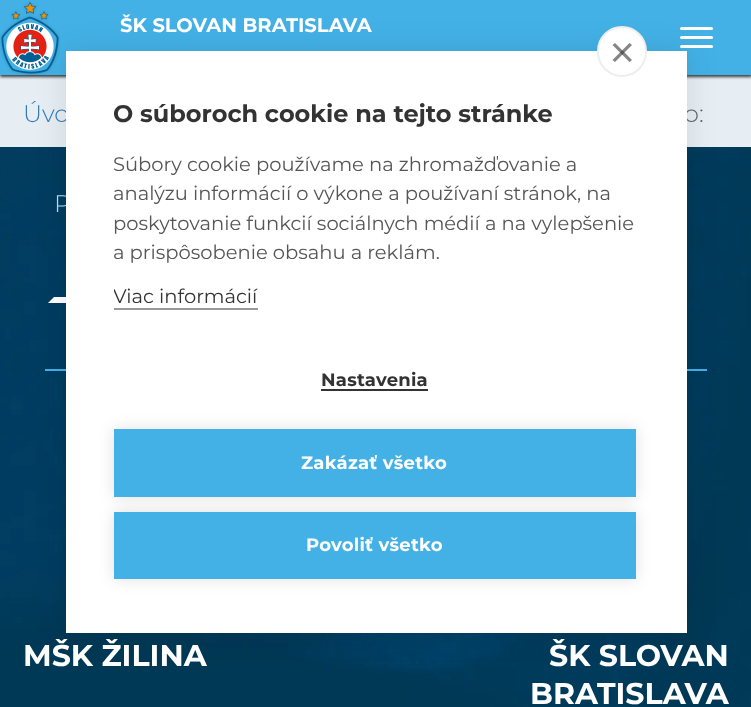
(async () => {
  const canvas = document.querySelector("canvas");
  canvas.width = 751;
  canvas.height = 707;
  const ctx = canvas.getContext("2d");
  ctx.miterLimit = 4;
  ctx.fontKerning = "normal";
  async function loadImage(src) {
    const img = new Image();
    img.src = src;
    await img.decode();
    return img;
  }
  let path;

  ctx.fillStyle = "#ffffff";
  ctx.fillRect(0, 0, 751, 707);
  ctx.fillStyle = "#e6eef4";
  ctx.fillRect(0, 75, 751, 72);
  ctx.fillStyle = "rgba(0, 0, 0, 0.75)";
  ctx.filter = "blur(1.5px)";
  ctx.beginPath();
  ctx.rect(0, 2, 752, 75);
  ctx.fill();
  ctx.filter = "none";
  ctx.fillStyle = "#43b1e6";
  ctx.fillRect(0, 0, 751, 75);
  ctx.drawImage(await loadImage("img/1.png"), 0, 1, 60, 74);
  ctx.fillStyle = "#ffffff";
  ctx.beginPath();
  ctx.roundRect(680, 27, 33, 3, 1.5);
  ctx.fill();
  ctx.beginPath();
  ctx.roundRect(680, 36, 33, 3, 1.5);
  ctx.fill();
  ctx.beginPath();
  ctx.roundRect(680, 45, 33, 3, 1.5);
  ctx.fill();
  ctx.drawImage(await loadImage("img/2.png"), 0, 147, 751, 560);
  ctx.fillStyle = "#43b1e6";
  ctx.fillRect(45, 369, 662, 2);
  ctx.fillStyle = "#ffffff";
  path = new Path2D("M236 303H48L54 297H230Z");
  ctx.fill(path);
  ctx.fillStyle = "rgba(0, 0, 0, 0.1)";
  ctx.filter = "blur(15px)";
  ctx.beginPath();
  ctx.rect(66, 51, 621, 582);
  ctx.fill();
  ctx.filter = "none";
  ctx.font = "bold 19.5px Montserrat";
  ctx.fillStyle = "#ffffff";
  ctx.fillText("ŠK SLOVAN BRATISLAVA", 120, 32);
  ctx.font = "300 24px Montserrat";
  ctx.fillStyle = "#337ab7";
  ctx.fillText("Úvo", 23, 122);
  ctx.fillStyle = "#5c6265";
  ctx.fillText("o:", 684, 122);
  ctx.fillStyle = "#b5d8f4";
  ctx.fillText("P", 54, 212);
  ctx.fillStyle = "#ffffff";
  ctx.fillRect(66, 51, 621, 582);
  ctx.beginPath();
  ctx.roundRect(598, 27, 48, 49, 24);
  ctx.fill();
  ctx.strokeStyle = "#eeeeee";
  ctx.lineWidth = 2;
  ctx.stroke();
  ctx.fillStyle = "#858585";
  path = new Path2D("M612.5 60L629.5 43L632 45L615 62Z");
  ctx.fill(path);
  ctx.fillStyle = "rgba(51, 51, 51, 0.6)";
  path = new Path2D("M615 43L632 60L629.5 62L612.5 45Z");
  ctx.fill(path);
  ctx.save();
  ctx.beginPath();
  ctx.rect(114, 90, 525, 227);
  ctx.clip();
  ctx.font = "19.5px Montserrat";
  ctx.fillStyle = "#333333";
  ctx.fillText("Viac informácií", 113, 303);
  ctx.restore();
  ctx.fillStyle = "#999999";
  ctx.fillRect(114, 308, 144, 2);
  ctx.font = "19.5px Montserrat";
  ctx.fillStyle = "#555555";
  for (const [text, x, y] of [
    ["a prispôsobenie obsahu a reklám.", 113, 259],
    ["poskytovanie funkcií sociálnych médií a na vylepšenie", 113, 230],
    ["analýzu informácií o výkone a používaní stránok, na", 113, 200],
    ["Súbory cookie používame na zhromažďovanie a", 113, 171],
  ]) {
    ctx.fillText(text, x, y);
  }
  ctx.save();
  ctx.beginPath();
  ctx.rect(114, 90, 525, 227);
  ctx.clip();
  ctx.font = "bold 24px Montserrat";
  ctx.fillStyle = "#333333";
  ctx.fillText("O súboroch cookie na tejto stránke", 113, 122);
  ctx.restore();
  ctx.fillStyle = "rgba(0, 0, 0, 0.12)";
  ctx.filter = "blur(7.5px)";
  ctx.beginPath();
  ctx.rect(114, 429, 522, 68);
  ctx.fill();
  ctx.filter = "none";
  ctx.fillStyle = "#43b1e6";
  ctx.fillRect(114, 429, 522, 68);
  ctx.fillStyle = "rgba(0, 0, 0, 0.12)";
  ctx.filter = "blur(7.5px)";
  ctx.beginPath();
  ctx.rect(114, 512, 522, 67);
  ctx.fill();
  ctx.filter = "none";
  ctx.fillStyle = "#43b1e6";
  ctx.fillRect(114, 512, 522, 67);
  ctx.letterSpacing = "0.25px";
  ctx.font = "bold 18px Montserrat";
  ctx.fillStyle = "#ffffff";
  ctx.fillText("Povoliť všetko", 306, 551);
  ctx.fillText("Zakázať všetko", 301, 469);
  ctx.fillStyle = "#333333";
  ctx.fillText("Nastavenia", 321, 386);
  ctx.fillRect(321, 389, 107, 2);
  ctx.letterSpacing = "0px";
  ctx.font = "bold 30px Montserrat";
  ctx.fillStyle = "#ffffff";
  for (const [text, x, y] of [
    ["MŠK ŽILINA", 23, 666],
    ["ŠK SLOVAN", 549, 666],
    ["BRATISLAVA", 530, 704],
  ]) {
    ctx.fillText(text, x, y);
  }
})();
